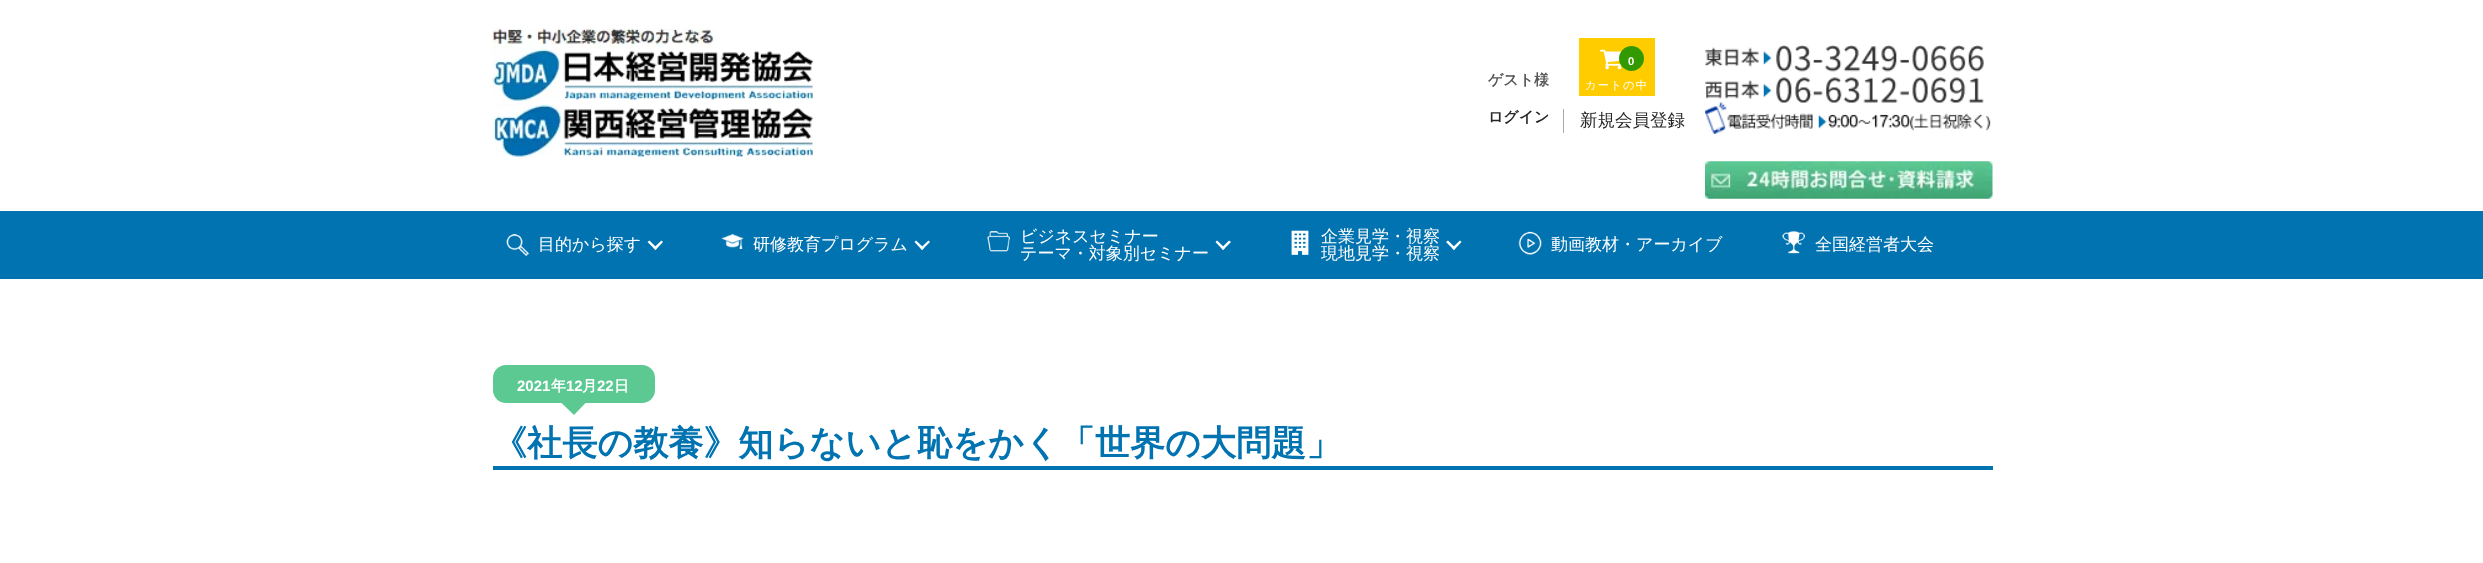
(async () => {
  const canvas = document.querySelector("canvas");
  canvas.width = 2483;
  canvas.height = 563;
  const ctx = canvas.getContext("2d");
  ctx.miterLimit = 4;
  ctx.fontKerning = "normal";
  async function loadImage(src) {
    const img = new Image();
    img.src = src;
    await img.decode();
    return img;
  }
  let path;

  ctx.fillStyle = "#ffffff";
  ctx.fillRect(0, 0, 2483, 563);
  ctx.drawImage(await loadImage("img/1.png"), 492, 28, 321, 129);
  ctx.fillStyle = "#ffcc00";
  ctx.fillRect(1579, 38, 76, 58);
  ctx.drawImage(await loadImage("img/2.png"), 1600, 49, 22, 21);
  ctx.fillStyle = "#339900";
  ctx.beginPath();
  ctx.arc(1631.5, 58.5, 12.5, 0, Math.PI * 2);
  ctx.fill();
  ctx.fillStyle = "#aaaaaa";
  ctx.fillRect(1563, 109, 1, 24);
  ctx.drawImage(await loadImage("img/3.png"), 1705, 45, 286, 89);
  ctx.drawImage(await loadImage("img/4.png"), 1705, 161, 288, 38);
  ctx.fillStyle = "#0173b1";
  ctx.fillRect(0, 211, 2483, 68);
  ctx.drawImage(await loadImage("img/5.png"), 506, 234, 23, 22);
  ctx.fillStyle = "#ffffff";
  path = new Path2D("M663 242L655.5 250L653.5 248L661.5 240.5Z");
  ctx.fill(path);
  path = new Path2D("M657 248L655.5 250L647.5 242L649.5 240.5Z");
  ctx.fill(path);
  ctx.drawImage(await loadImage("img/6.png"), 721, 234, 23, 15);
  path = new Path2D("M930 242L922 250L920.5 248L928.5 240.5Z");
  ctx.fill(path);
  path = new Path2D("M924 248L922 250L914.5 242L916 240.5Z");
  ctx.fill(path);
  ctx.drawImage(await loadImage("img/7.png"), 987, 231, 23, 21);
  path = new Path2D("M1231 242L1223 250L1221.5 248L1229 240.5Z");
  ctx.fill(path);
  path = new Path2D("M1225 248L1223 250L1215.5 242L1217 240.5Z");
  ctx.fill(path);
  ctx.drawImage(await loadImage("img/8.png"), 1291, 230, 18, 25);
  path = new Path2D("M1461.5 242L1454 250L1452 248L1460 240.5Z");
  ctx.fill(path);
  path = new Path2D("M1455.5 248L1454 250L1446 242L1448 240.5Z");
  ctx.fill(path);
  ctx.drawImage(await loadImage("img/9.png"), 1518, 231, 24, 24);
  ctx.drawImage(await loadImage("img/10.png"), 1782, 231, 23, 23);
  ctx.fillStyle = "#5cc993";
  ctx.beginPath();
  ctx.roundRect(493, 365, 162, 38, 13);
  ctx.fill();
  path = new Path2D("M561 402.5H586L574 415Z");
  ctx.fill(path);
  ctx.fillStyle = "#0173b1";
  ctx.fillRect(493, 466, 1500, 4);
  ctx.font = "bold 15px WenQuanYi Zen Hei";
  ctx.fillStyle = "#565656";
  ctx.fillText("ゲスト様", 1488, 85);
  ctx.letterSpacing = "1.25px";
  ctx.font = "bold 11.25px Liberation Sans";
  ctx.fillStyle = "#ffffff";
  ctx.fillText("0", 1628, 65);
  ctx.font = "500 11.25px WenQuanYi Zen Hei";
  ctx.fillText("カートの中", 1585, 89);
  ctx.letterSpacing = "0px";
  ctx.font = "bold 15px WenQuanYi Zen Hei";
  ctx.fillStyle = "#262626";
  ctx.fillText("ログイン", 1488, 122);
  ctx.font = "500 17.5px WenQuanYi Zen Hei";
  ctx.fillText("新規会員登録", 1580, 126);
  ctx.font = "500 17px WenQuanYi Zen Hei";
  ctx.fillStyle = "#ffffff";
  for (const [text, x, y] of [
    ["目的から探す", 538, 250],
    ["研修教育プログラム", 753, 250],
    ["ビジネスセミナー", 1020, 242],
    ["テーマ・対象別セミナー", 1020, 259],
    ["企業見学・視察", 1321, 242],
    ["現地見学・視察", 1321, 259],
    ["動画教材・アーカイブ", 1551, 250],
    ["全国経営者大会", 1815, 250],
  ]) {
    ctx.fillText(text, x, y);
  }
  ctx.font = "bold 15px Liberation Sans";
  ctx.fillText("2021", 517, 391);
  ctx.font = "bold 15px WenQuanYi Zen Hei";
  ctx.fillText("年", 551, 391);
  ctx.font = "bold 15px Liberation Sans";
  ctx.fillText("12", 566, 391);
  ctx.font = "bold 15px WenQuanYi Zen Hei";
  ctx.fillText("月", 582, 391);
  ctx.font = "bold 15px Liberation Sans";
  ctx.fillText("22", 597, 391);
  ctx.font = "bold 15px WenQuanYi Zen Hei";
  ctx.fillText("日", 614, 391);
  ctx.font = "bold 35.1px WenQuanYi Zen Hei";
  ctx.fillStyle = "#0173b1";
  ctx.fillText("《社長の教養》知らないと恥をかく「世界の大問題」", 492, 455);
})();
